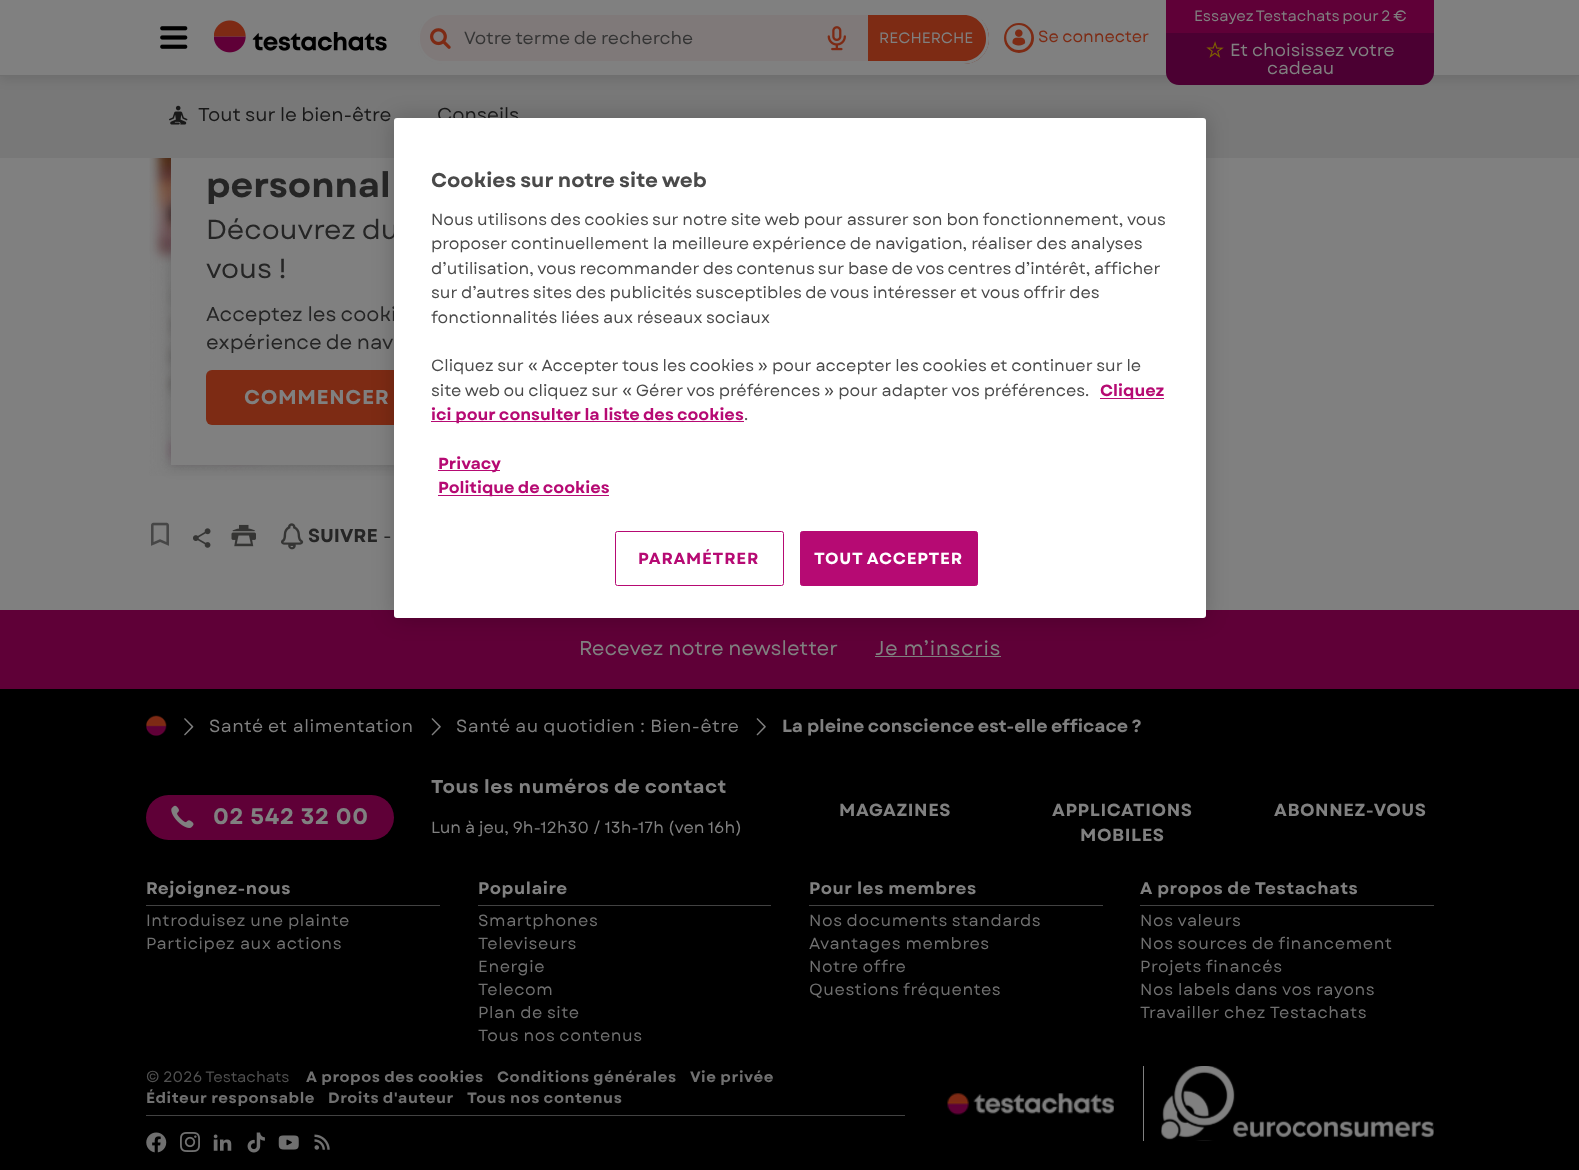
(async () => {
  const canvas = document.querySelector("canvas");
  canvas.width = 1579;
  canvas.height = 1170;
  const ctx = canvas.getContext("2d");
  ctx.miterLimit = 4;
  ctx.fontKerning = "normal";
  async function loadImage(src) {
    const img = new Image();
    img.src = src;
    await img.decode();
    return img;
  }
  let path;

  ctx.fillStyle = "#808080";
  ctx.fillRect(0, 0, 1579, 1170);
  ctx.drawImage(await loadImage("img/8.png"), 149, 158, 245, 318);
  ctx.fillStyle = "rgba(0, 0, 0, 0.15)";
  ctx.filter = "blur(6px)";
  ctx.beginPath();
  ctx.rect(169, 69, 911, 399);
  ctx.fill();
  ctx.filter = "none";
  ctx.fillStyle = "#787878";
  ctx.fillRect(0, 76, 1579, 82);
  ctx.fillStyle = "rgba(0, 0, 0, 0.1)";
  ctx.filter = "blur(6px)";
  ctx.beginPath();
  ctx.rect(0, 3, 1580, 76);
  ctx.fill();
  ctx.filter = "none";
  ctx.fillStyle = "#808080";
  ctx.fillRect(0, 0, 1579, 75);
  ctx.fillStyle = "#6f6f6f";
  ctx.fillRect(0, 75, 1579, 1);
  ctx.drawImage(await loadImage("img/1.png"), 160, 26, 28, 23);
  ctx.drawImage(await loadImage("img/2.png"), 214, 20, 173, 33);
  ctx.fillStyle = "#7f7979";
  ctx.beginPath();
  ctx.roundRect(418, 13, 450, 51, [25, 0, 0, 25]);
  ctx.fill();
  ctx.fillStyle = "#808080";
  path = new Path2D("M442 12H868V64H442C429 64 418 53 418 39V38C418 24 429 12 442 12ZM442 15H868V61H442C430 61 420 51 420 39V38C420 25 430 15 442 15Z");
  ctx.fill(path, "evenodd");
  ctx.drawImage(await loadImage("img/3.png"), 430, 28, 21, 21);
  ctx.drawImage(await loadImage("img/4.png"), 827, 26, 19, 25);
  ctx.fillStyle = "#7d2b14";
  ctx.beginPath();
  ctx.roundRect(868, 13, 121, 51, [0, 25, 25, 0]);
  ctx.fill();
  ctx.fillStyle = "#808080";
  path = new Path2D("M868 12H964C978 12 989 24 989 38V39C989 53 978 64 964 64H868ZM868 15H964C976 15 986 25 986 38V39C986 51 976 61 964 61H868Z");
  ctx.fill(path, "evenodd");
  ctx.beginPath();
  ctx.arc(1019, 38, 13.5, 0, Math.PI * 2);
  ctx.strokeStyle = "#7d2b14";
  ctx.lineWidth = 3;
  ctx.stroke();
  ctx.fillStyle = "#7d2b14";
  ctx.beginPath();
  ctx.arc(1018.5, 37.5, 12.5, 0, Math.PI * 2);
  ctx.fill();
  ctx.drawImage(await loadImage("img/5.png"), 1006, 25, 26, 25);
  ctx.fillStyle = "#5f0037";
  ctx.fillRect(1166, 0, 268, 33);
  ctx.fillStyle = "#4b0032";
  ctx.beginPath();
  ctx.roundRect(1166, 33, 268, 52, [0, 0, 13, 13]);
  ctx.fill();
  ctx.drawImage(await loadImage("img/6.png"), 1206, 41, 18, 17);
  ctx.drawImage(await loadImage("img/7.png"), 169, 105, 19, 20);
  ctx.fillStyle = "#808080";
  ctx.fillRect(171, 158, 223, 307);
  ctx.fillStyle = "#7d2b14";
  ctx.beginPath();
  ctx.roundRect(206, 370, 222, 55, 6);
  ctx.fill();
  ctx.drawImage(await loadImage("img/9.png"), 151, 522, 18, 24);
  ctx.drawImage(await loadImage("img/10.png"), 193, 528, 18, 20);
  ctx.drawImage(await loadImage("img/11.png"), 231, 524, 25, 23);
  ctx.drawImage(await loadImage("img/12.png"), 281, 523, 23, 27);
  ctx.fillStyle = "#5f0037";
  ctx.fillRect(0, 610, 1579, 79);
  ctx.fillStyle = "rgba(0, 0, 0, 0.2)";
  ctx.filter = "blur(11px)";
  ctx.beginPath();
  ctx.roundRect(394, 118, 812, 500, 3);
  ctx.fill();
  ctx.filter = "none";
  ctx.fillStyle = "#000000";
  ctx.fillRect(0, 689, 1579, 481);
  ctx.fillStyle = "#808080";
  ctx.fillRect(875, 656, 126, 1);
  ctx.drawImage(await loadImage("img/13.png"), 146, 715, 21, 21);
  ctx.drawImage(await loadImage("img/14.png"), 184, 718, 10, 18);
  ctx.drawImage(await loadImage("img/15.png"), 431, 718, 10, 18);
  ctx.drawImage(await loadImage("img/15.png"), 756, 718, 10, 18);
  ctx.fillStyle = "#5f0037";
  ctx.beginPath();
  ctx.roundRect(146, 795, 248, 45, 22.5);
  ctx.fill();
  ctx.drawImage(await loadImage("img/16.png"), 171, 805, 23, 23);
  for (const [x, y, w, h, color] of [
    [146, 905, 294, 1, "#424242"],
    [478, 905, 293, 1, "#424242"],
    [809, 905, 294, 1, "#424242"],
    [1140, 905, 294, 1, "#424242"],
    [146, 1115, 759, 1, "#424242"],
  ]) {
    ctx.fillStyle = color;
    ctx.fillRect(x, y, w, h);
  }
  ctx.drawImage(await loadImage("img/17.png"), 146, 1132, 21, 21);
  ctx.drawImage(await loadImage("img/18.png"), 180, 1132, 20, 20);
  ctx.drawImage(await loadImage("img/19.png"), 213, 1134, 19, 17);
  ctx.drawImage(await loadImage("img/20.png"), 247, 1132, 18, 21);
  ctx.drawImage(await loadImage("img/21.png"), 278, 1135, 21, 15);
  ctx.drawImage(await loadImage("img/22.png"), 314, 1134, 16, 16);
  ctx.drawImage(await loadImage("img/23.png"), 947, 1093, 167, 22);
  ctx.fillStyle = "#808080";
  ctx.fillRect(1143, 1066, 1, 75);
  ctx.drawImage(await loadImage("img/24.png"), 1161, 1066, 273, 75);
  ctx.font = "17.5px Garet";
  ctx.fillStyle = "#353535";
  ctx.fillText("Votre terme de recherche", 464, 44);
  ctx.font = "15px Garet";
  ctx.fillStyle = "#808080";
  ctx.fillText("RECHERCHE", 879, 43);
  ctx.font = "16.25px Garet";
  ctx.fillStyle = "#7d2b14";
  ctx.fillText("Se connecter", 1038, 42);
  ctx.wordSpacing = "-1px";
  ctx.font = "15px Garet";
  ctx.fillStyle = "#808080";
  ctx.fillText("Essayez Testachats pour 2 €", 1194, 21);
  ctx.wordSpacing = "0px";
  ctx.font = "17.5px Garet";
  ctx.fillText("Et choisissez votre", 1230, 56);
  ctx.fillText("cadeau", 1267, 74);
  ctx.font = "18.75px Garet";
  ctx.fillStyle = "#181818";
  ctx.fillText("Tout sur le bien-être", 198, 121);
  ctx.fillText("Conseils", 437, 121);
  ctx.font = "bold 35px Garet";
  ctx.fillStyle = "#252525";
  ctx.fillText("personnal", 206, 197);
  ctx.font = "27.5px Garet";
  ctx.fillText("Découvrez du", 206, 239);
  ctx.fillText("vous !", 206, 278);
  ctx.font = "20px Garet";
  ctx.fillText("Acceptez les cooki", 206, 321);
  ctx.fillText("expérience de nav", 206, 349);
  ctx.letterSpacing = "0.6px";
  ctx.font = "bold 20px Garet";
  ctx.fillStyle = "#808080";
  ctx.fillText("COMMENCER", 244, 404);
  ctx.letterSpacing = "0px";
  ctx.font = "bold 18.75px Garet";
  ctx.fillStyle = "#252525";
  ctx.fillText("SUIVRE", 308, 542);
  ctx.font = "18.75px Garet";
  ctx.fillText("-", 383, 542);
  ctx.fillStyle = "#ffffff";
  ctx.beginPath();
  ctx.roundRect(394, 118, 812, 500, 3);
  ctx.fill();
  ctx.font = "bold 20px Garet";
  ctx.fillStyle = "#4a4a4a";
  ctx.fillText("Cookies sur notre site web", 431, 187);
  ctx.font = "16.25px Garet";
  ctx.fillText("Nous utilisons des cookies sur notre site web pour assurer son bon fonctionnement, vous", 431, 225);
  ctx.fillText("proposer continuellement la meilleure expérience de navigation, réaliser des analyses", 431, 249);
  ctx.wordSpacing = "-0.25px";
  ctx.fillText("d’utilisation, vous recommander des contenus sur base de vos centres d’intérêt, afficher", 431, 274);
  ctx.wordSpacing = "0px";
  for (const [text, x, y] of [
    ["sur d’autres sites des publicités susceptibles de vous intéresser et vous offrir des", 431, 298],
    ["fonctionnalités liées aux réseaux sociaux", 431, 323],
    ["Cliquez sur « Accepter tous les cookies » pour accepter les cookies et continuer sur le", 431, 371],
    ["site web ou cliquez sur « Gérer vos préférences » pour adapter vos préférences.", 431, 396],
  ]) {
    ctx.fillText(text, x, y);
  }
  ctx.fillStyle = "#b60a73";
  ctx.fillRect(1100, 398, 64, 1);
  ctx.font = "bold 16.25px Garet";
  ctx.fillText("Cliquez", 1100, 396);
  ctx.fillRect(431, 421, 313, 1);
  ctx.fillText("ici pour consulter la liste des cookies", 431, 420);
  ctx.font = "16.25px Garet";
  ctx.fillStyle = "#4a4a4a";
  ctx.fillText(".", 744, 420);
  ctx.fillStyle = "#b60a73";
  ctx.fillRect(438, 470, 62, 1);
  ctx.font = "bold 16.25px Garet";
  ctx.fillText("Privacy", 438, 469);
  ctx.fillRect(438, 495, 171, 1);
  ctx.fillText("Politique de cookies", 438, 493);
  ctx.beginPath();
  ctx.roundRect(615.5, 531.5, 168, 54, 2);
  ctx.strokeStyle = "#b60a73";
  ctx.lineWidth = 1;
  ctx.stroke();
  ctx.letterSpacing = "0.75px";
  ctx.fillText("PARAMÉTRER", 638, 564);
  ctx.beginPath();
  ctx.roundRect(800.5, 531.5, 177, 54, 2);
  ctx.fill();
  ctx.stroke();
  ctx.fillStyle = "#ffffff";
  ctx.fillText("TOUT ACCEPTER", 814, 564);
  ctx.letterSpacing = "0px";
  ctx.font = "20px Garet";
  ctx.fillStyle = "#808080";
  ctx.fillText("Recevez notre newsletter", 579, 655);
  ctx.letterSpacing = "0.6px";
  ctx.fillText("Je m’inscris", 875, 655);
  ctx.font = "17.5px Garet";
  ctx.fillText("Santé et alimentation", 209, 732);
  ctx.fillText("Santé au quotidien : Bien-être", 456, 732);
  ctx.letterSpacing = "0px";
  ctx.font = "bold 17.5px Garet";
  ctx.fillText("La pleine conscience est-elle efficace ?", 782, 732);
  ctx.letterSpacing = "0.6px";
  ctx.font = "bold 22.5px Garet";
  ctx.fillText("02 542 32 00", 213, 824);
  ctx.font = "bold 18.75px Garet";
  ctx.fillText("Tous les numéros de contact", 431, 793);
  ctx.letterSpacing = "0px";
  ctx.font = "16.25px Garet";
  ctx.fillText("Lun à jeu, 9h-12h30 / 13h-17h (ven 16h)", 431, 833);
  ctx.letterSpacing = "0.6px";
  ctx.font = "bold 17.5px Garet";
  for (const [text, x, y] of [
    ["MAGAZINES", 839, 816],
    ["APPLICATIONS", 1052, 816],
    ["MOBILES", 1080, 841],
    ["ABONNEZ-VOUS", 1274, 816],
  ]) {
    ctx.fillText(text, x, y);
  }
  ctx.font = "bold 16.9px Garet";
  ctx.fillText("Rejoignez-nous", 146, 894);
  ctx.font = "16.25px Garet";
  ctx.fillStyle = "#707070";
  ctx.fillText("Introduisez une plainte", 146, 926);
  ctx.fillText("Participez aux actions", 146, 949);
  ctx.font = "bold 16.9px Garet";
  ctx.fillStyle = "#808080";
  ctx.fillText("Populaire", 478, 894);
  ctx.font = "16.25px Garet";
  ctx.fillStyle = "#707070";
  for (const [text, x, y] of [
    ["Smartphones", 478, 926],
    ["Televiseurs", 478, 949],
    ["Energie", 478, 972],
    ["Telecom", 478, 995],
    ["Plan de site", 478, 1018],
    ["Tous nos contenus", 478, 1041],
  ]) {
    ctx.fillText(text, x, y);
  }
  ctx.font = "bold 16.9px Garet";
  ctx.fillStyle = "#808080";
  ctx.fillText("Pour les membres", 809, 894);
  ctx.font = "16.25px Garet";
  ctx.fillStyle = "#707070";
  for (const [text, x, y] of [
    ["Nos documents standards", 809, 926],
    ["Avantages membres", 809, 949],
    ["Notre offre", 809, 972],
    ["Questions fréquentes", 809, 995],
  ]) {
    ctx.fillText(text, x, y);
  }
  ctx.font = "bold 16.9px Garet";
  ctx.fillStyle = "#808080";
  ctx.fillText("A propos de Testachats", 1140, 894);
  ctx.font = "16.25px Garet";
  ctx.fillStyle = "#707070";
  for (const [text, x, y] of [
    ["Nos valeurs", 1140, 926],
    ["Nos sources de financement", 1140, 949],
    ["Projets financés", 1140, 972],
    ["Nos labels dans vos rayons", 1140, 995],
    ["Travailler chez Testachats", 1140, 1018],
  ]) {
    ctx.fillText(text, x, y);
  }
  ctx.letterSpacing = "0px";
  ctx.font = "15px Garet";
  ctx.fillStyle = "#515151";
  ctx.fillText("© 2026 Testachats", 146, 1082);
  ctx.letterSpacing = "0.6px";
  ctx.font = "bold 15px Garet";
  ctx.fillStyle = "#707070";
  for (const [text, x, y] of [
    ["A propos des cookies", 306, 1082],
    ["Conditions générales", 497, 1082],
    ["Vie privée", 690, 1082],
    ["Éditeur responsable", 146, 1103],
    ["Droits d'auteur", 328, 1103],
    ["Tous nos contenus", 467, 1103],
  ]) {
    ctx.fillText(text, x, y);
  }
})();
